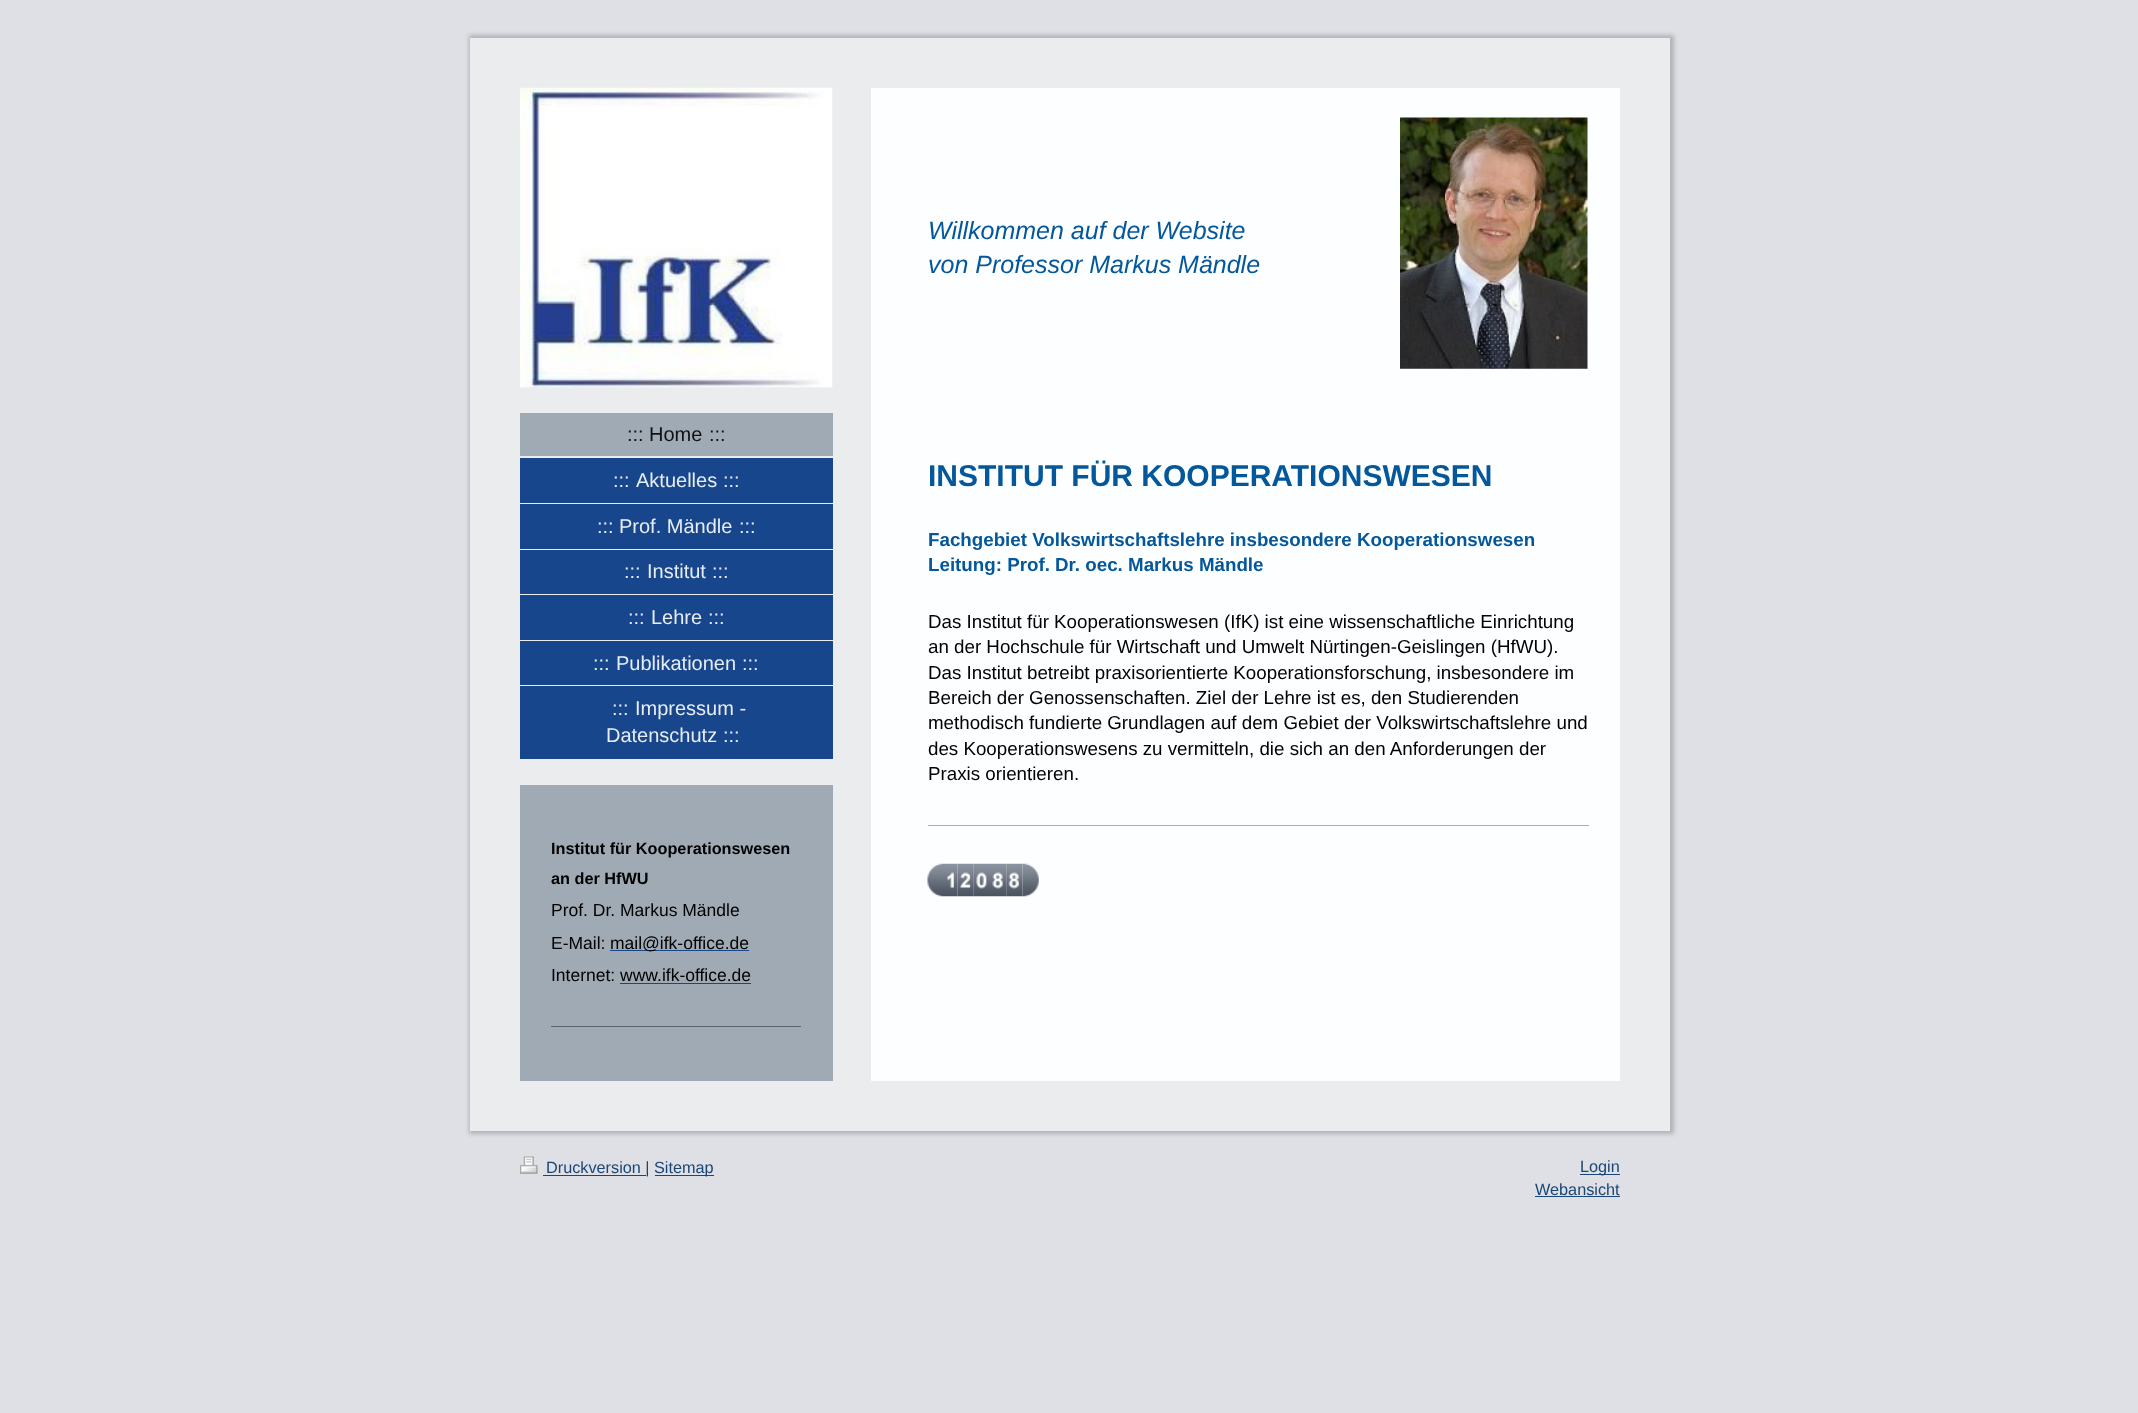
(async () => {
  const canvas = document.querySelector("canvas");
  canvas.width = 2138;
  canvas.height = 1413;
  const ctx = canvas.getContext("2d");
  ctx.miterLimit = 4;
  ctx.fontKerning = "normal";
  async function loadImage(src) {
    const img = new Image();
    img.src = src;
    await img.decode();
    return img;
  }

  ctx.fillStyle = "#dee0e5";
  ctx.fillRect(0, 0, 2138, 1413);
  ctx.fillStyle = "rgba(0, 0, 0, 0.2)";
  ctx.filter = "blur(2px)";
  ctx.beginPath();
  ctx.rect(469, 35, 1205, 1099);
  ctx.fill();
  ctx.filter = "none";
  ctx.fillStyle = "#ebecee";
  ctx.fillRect(470, 38, 1200, 1093);
  ctx.drawImage(await loadImage("img/1.png"), 520, 87, 313, 301);
  for (const [x, y, w, h, color] of [
    [520, 413, 313, 43, "#a0aab4"],
    [520, 458, 313, 45, "#18468c"],
    [520, 504, 313, 45, "#18468c"],
    [520, 550, 313, 44, "#18468c"],
    [520, 595, 313, 45, "#18468c"],
    [520, 641, 313, 44, "#18468c"],
    [520, 686, 313, 73, "#18468c"],
    [520, 785, 313, 296, "#a0aab4"],
    [610, 950, 139, 1, "#18468c"],
    [620, 983, 131, 1, "#18468c"],
    [551, 1026, 250, 1, "#5a6570"],
    [871, 88, 749, 993, "#fdfeff"],
  ]) {
    ctx.fillStyle = color;
    ctx.fillRect(x, y, w, h);
  }
  ctx.drawImage(await loadImage("img/2.png"), 1400, 117, 188, 252);
  ctx.fillStyle = "#73b9ff";
  ctx.fillRect(928, 825, 661, 1);
  ctx.drawImage(await loadImage("img/3.png"), 927, 863, 18, 34);
  ctx.drawImage(await loadImage("img/4.png"), 945, 863, 13, 34);
  ctx.drawImage(await loadImage("img/5.png"), 957, 863, 17, 34);
  ctx.drawImage(await loadImage("img/6.png"), 973, 863, 17, 34);
  ctx.drawImage(await loadImage("img/7.png"), 990, 863, 17, 34);
  ctx.drawImage(await loadImage("img/8.png"), 1006, 863, 17, 34);
  ctx.drawImage(await loadImage("img/9.png"), 1022, 863, 17, 34);
  ctx.drawImage(await loadImage("img/10.png"), 520, 1156, 18, 18);
  for (const [x, y, w, h, color] of [
    [543, 1175, 103, 1, "#194674"],
    [655, 1175, 59, 1, "#194674"],
    [1580, 1174, 40, 1, "#194674"],
    [1535, 1196, 85, 1, "#194674"],
  ]) {
    ctx.fillStyle = color;
    ctx.fillRect(x, y, w, h);
  }
  ctx.font = "20px Liberation Sans";
  ctx.fillStyle = "#101112";
  for (const [text, x, y] of [
    [":::", 627, 441],
    ["Home", 649, 441],
    [":::", 709, 441],
  ]) {
    ctx.fillText(text, x, y);
  }
  ctx.fillStyle = "#e8edf4";
  for (const [text, x, y] of [
    [":::", 613, 487],
    ["Aktuelles", 636, 487],
    [":::", 723, 487],
    [":::", 597, 533],
    ["Prof. Mändle", 619, 533],
    [":::", 739, 533],
    [":::", 624, 578],
    ["Institut", 647, 578],
    [":::", 712, 578],
    [":::", 628, 624],
    ["Lehre", 651, 624],
    [":::", 708, 624],
    [":::", 593, 670],
    ["Publikationen", 616, 670],
    [":::", 742, 670],
    [":::", 612, 715],
    ["Impressum -", 635, 715],
    ["Datenschutz", 606, 742],
    [":::", 723, 742],
  ]) {
    ctx.fillText(text, x, y);
  }
  ctx.font = "bold 16.25px Liberation Sans";
  ctx.fillStyle = "#000000";
  ctx.fillText("Institut für Kooperationswesen", 551, 854);
  ctx.fillText("an der HfWU", 551, 884);
  ctx.font = "17.5px Liberation Sans";
  for (const [text, x, y] of [
    ["Prof. Dr. Markus Mändle", 551, 916],
    ["E-Mail:", 551, 949],
    ["mail@ifk-office.de", 610, 949],
    ["Internet: www.ifk-office.de", 551, 981],
  ]) {
    ctx.fillText(text, x, y);
  }
  ctx.font = "italic 25px Liberation Sans";
  ctx.fillStyle = "#03579b";
  ctx.fillText("Willkommen auf der Website", 928, 239);
  ctx.fillText("von Professor Markus Mändle", 928, 273);
  ctx.font = "bold 30px Liberation Sans";
  ctx.fillText("INSTITUT FÜR KOOPERATIONSWESEN", 928, 486);
  ctx.font = "bold 18.75px Liberation Sans";
  ctx.fillText("Fachgebiet Volkswirtschaftslehre insbesondere Kooperationswesen", 928, 546);
  ctx.fillText("Leitung: Prof. Dr. oec. Markus Mändle", 928, 571);
  ctx.font = "18.75px Liberation Sans";
  ctx.fillStyle = "#000000";
  for (const [text, x, y] of [
    ["Das Institut für Kooperationswesen (IfK) ist eine wissenschaftliche Einrichtung", 928, 628],
    ["an der Hochschule für Wirtschaft und Umwelt Nürtingen-Geislingen (HfWU).", 928, 653],
    ["Das Institut betreibt praxisorientierte Kooperationsforschung, insbesondere im", 928, 679],
    ["Bereich der Genossenschaften. Ziel der Lehre ist es, den Studierenden", 928, 704],
    ["methodisch fundierte Grundlagen auf dem Gebiet der Volkswirtschaftslehre und", 928, 729],
    ["des Kooperationswesens zu vermitteln, die sich an den Anforderungen der", 928, 755],
    ["Praxis orientieren.", 928, 780],
  ]) {
    ctx.fillText(text, x, y);
  }
  ctx.font = "16.25px Liberation Sans";
  ctx.fillStyle = "#194674";
  for (const [text, x, y] of [
    ["Druckversion |", 546, 1173],
    ["Sitemap", 654, 1173],
    ["Login", 1580, 1172],
    ["Webansicht", 1535, 1195],
  ]) {
    ctx.fillText(text, x, y);
  }
})();
